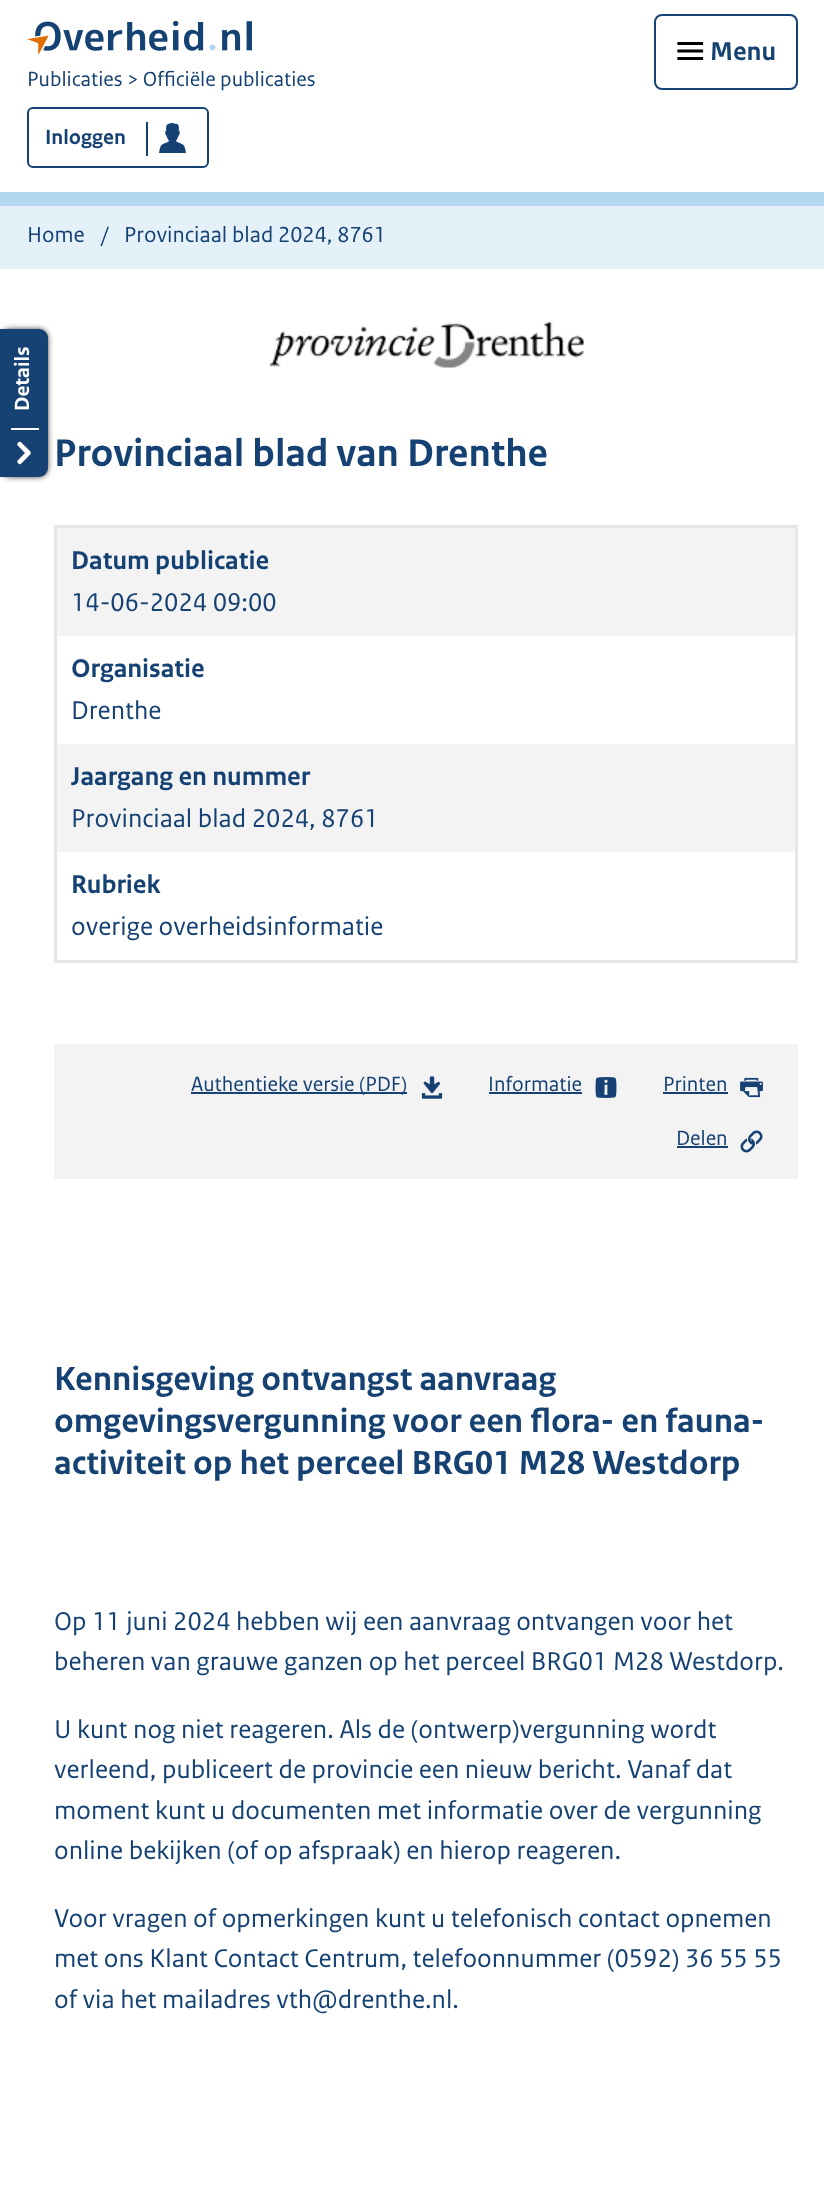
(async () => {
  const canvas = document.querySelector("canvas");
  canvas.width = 824;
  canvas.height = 2186;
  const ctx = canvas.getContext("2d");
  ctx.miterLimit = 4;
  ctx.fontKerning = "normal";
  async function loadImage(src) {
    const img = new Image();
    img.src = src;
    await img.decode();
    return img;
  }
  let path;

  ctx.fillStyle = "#ffffff";
  ctx.fillRect(0, 0, 824, 2186);
  ctx.fillStyle = "#b2d7ee";
  ctx.fillRect(0, 192, 824, 14);
  ctx.save();
  ctx.beginPath();
  ctx.rect(677, 42, 27, 18);
  ctx.clip();
  path = new Path2D("M679 43.5H701.5M679 51H701.5M679 58.5H701.5");
  ctx.strokeStyle = "#000000";
  ctx.lineWidth = 3.2;
  ctx.lineCap = "square";
  ctx.stroke(path);
  ctx.restore();
  ctx.beginPath();
  ctx.roundRect(655, 15, 142, 74, 7);
  ctx.strokeStyle = "#154273";
  ctx.lineWidth = 2;
  ctx.stroke();
  ctx.drawImage(await loadImage("img/1.png"), 27, 21, 225, 33);
  ctx.drawImage(await loadImage("img/2.png"), 159, 123, 27, 30);
  ctx.beginPath();
  ctx.roundRect(28, 108, 180, 59, 5);
  ctx.stroke();
  ctx.fillStyle = "#154273";
  ctx.fillRect(146, 122, 2, 34);
  ctx.fillStyle = "#e5f1f9";
  ctx.fillRect(0, 206, 824, 63);
  ctx.fillStyle = "#000000";
  ctx.filter = "blur(3px)";
  ctx.beginPath();
  ctx.roundRect(2, 330, 45, 146, 8);
  ctx.fill();
  ctx.filter = "none";
  ctx.fillStyle = "#154273";
  ctx.beginPath();
  ctx.roundRect(0, 329, 48, 148, [0, 9, 9, 0]);
  ctx.fill();
  ctx.drawImage(await loadImage("img/3.png"), 17, 441, 14, 24);
  for (const [x, y, w, h, color] of [
    [11, 428, 28, 2, "#ffffff"],
    [54, 1044, 744, 135, "#f3f3f3"],
    [191, 1092, 216, 2, "#154273"],
  ]) {
    ctx.fillStyle = color;
    ctx.fillRect(x, y, w, h);
  }
  ctx.drawImage(await loadImage("img/4.png"), 421, 1076, 22, 23);
  ctx.fillRect(489, 1092, 93, 2);
  ctx.drawImage(await loadImage("img/5.png"), 595, 1077, 22, 21);
  ctx.fillRect(663, 1092, 65, 2);
  ctx.drawImage(await loadImage("img/6.png"), 740, 1077, 23, 21);
  ctx.fillRect(677, 1146, 51, 2);
  ctx.drawImage(await loadImage("img/7.png"), 740, 1130, 23, 23);
  ctx.drawImage(await loadImage("img/8.png"), 270, 322, 314, 46);
  ctx.strokeStyle = "#e6e6e6";
  ctx.lineWidth = 3;
  ctx.strokeRect(55.5, 526.5, 741, 435);
  ctx.fillStyle = "#f3f3f3";
  ctx.fillRect(57, 528, 738, 108);
  ctx.fillRect(57, 744, 738, 108);
  ctx.font = "bold 27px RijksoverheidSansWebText";
  ctx.fillStyle = "#154273";
  ctx.fillText("Menu", 710, 60);
  ctx.font = "21.6px RijksoverheidSansWebText";
  ctx.fillText("Publicaties > Officiële publicaties", 27, 86);
  ctx.font = "bold 21.6px RijksoverheidSansWebText";
  ctx.fillText("Inloggen", 45, 144);
  ctx.font = "23px RijksoverheidSansWebText";
  for (const [text, x, y] of [
    ["Home", 27, 242],
    ["/", 101, 242],
    ["Provinciaal blad 2024, 8761", 124, 242],
  ]) {
    ctx.fillText(text, x, y);
  }
  ctx.font = "bold 21.6px RijksoverheidSansWebText";
  ctx.fillStyle = "#ffffff";
  ctx.save();
  ctx.translate(29, 411);
  ctx.rotate(-90 * Math.PI / 180);
  ctx.fillText("Details", 0, 0);
  ctx.restore();
  ctx.font = "21.6px RijksoverheidSansWebText";
  ctx.fillStyle = "#154273";
  for (const [text, x, y] of [
    ["Authentieke versie (PDF)", 191, 1091],
    ["Informatie", 488, 1091],
    ["Printen", 663, 1091],
    ["Delen", 676, 1145],
  ]) {
    ctx.fillText(text, x, y);
  }
  ctx.font = "bold 35.1px RijksoverheidSansWebText";
  for (const [text, x, y] of [
    ["Kennisgeving ontvangst aanvraag", 54, 1390],
    ["omgevingsvergunning voor een flora- en fauna-", 54, 1432],
    ["activiteit op het perceel BRG01 M28 Westdorp", 54, 1474],
  ]) {
    ctx.fillText(text, x, y);
  }
  ctx.font = "27px RijksoverheidSansWebText";
  for (const [text, x, y] of [
    ["Op 11 juni 2024 hebben wij een aanvraag ontvangen voor het", 54, 1630],
    ["beheren van grauwe ganzen op het perceel BRG01 M28 Westdorp.", 54, 1670],
    ["U kunt nog niet reageren. Als de (ontwerp)vergunning wordt", 54, 1738],
    ["verleend, publiceert de provincie een nieuw bericht. Vanaf dat", 54, 1778],
    ["moment kunt u documenten met informatie over de vergunning", 54, 1819],
    ["online bekijken (of op afspraak) en hierop reageren.", 54, 1859],
    ["Voor vragen of opmerkingen kunt u telefonisch contact opnemen", 54, 1927],
    ["met ons Klant Contact Centrum, telefoonnummer (0592) 36 55 55", 54, 1967],
    ["of via het mailadres vth@drenthe.nl.", 54, 2008],
  ]) {
    ctx.fillText(text, x, y);
  }
  ctx.font = "bold 40.5px RijksoverheidSansWebText";
  ctx.fillText("Provinciaal blad van Drenthe", 54, 466);
  ctx.font = "bold 27px RijksoverheidSansWebText";
  ctx.fillText("Datum publicatie", 71, 569);
  ctx.font = "27px RijksoverheidSansWebText";
  ctx.fillText("14-06-2024 09:00", 71, 611);
  ctx.font = "bold 27px RijksoverheidSansWebText";
  ctx.fillText("Organisatie", 71, 677);
  ctx.font = "27px RijksoverheidSansWebText";
  ctx.fillText("Drenthe", 71, 719);
  ctx.font = "bold 27px RijksoverheidSansWebText";
  ctx.fillText("Jaargang en nummer", 71, 785);
  ctx.font = "27px RijksoverheidSansWebText";
  ctx.fillText("Provinciaal blad 2024, 8761", 71, 827);
  ctx.font = "bold 27px RijksoverheidSansWebText";
  ctx.fillText("Rubriek", 71, 893);
  ctx.font = "27px RijksoverheidSansWebText";
  ctx.fillText("overige overheidsinformatie", 71, 935);
})();
